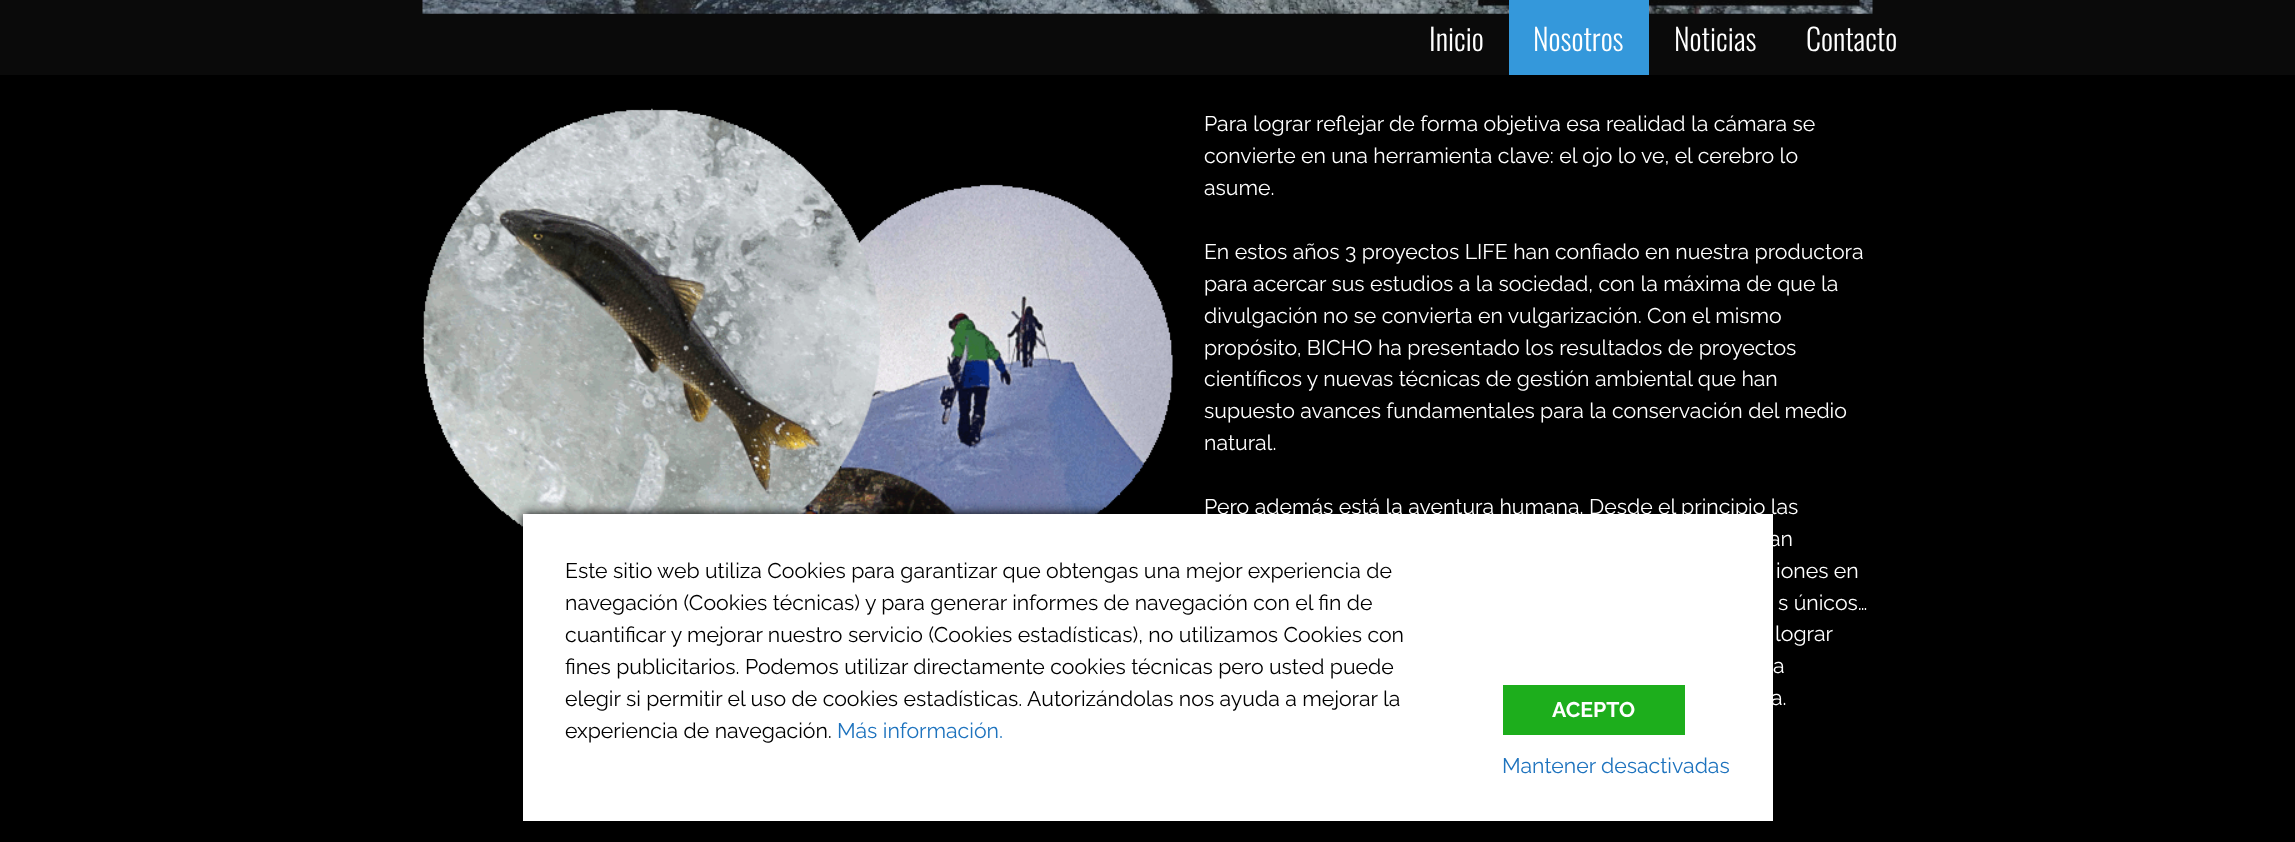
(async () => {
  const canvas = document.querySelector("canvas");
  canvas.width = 2295;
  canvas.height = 842;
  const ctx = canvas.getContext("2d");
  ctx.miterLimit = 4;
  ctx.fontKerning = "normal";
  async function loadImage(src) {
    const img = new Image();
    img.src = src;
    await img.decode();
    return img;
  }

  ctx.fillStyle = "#000000";
  ctx.fillRect(0, 0, 2295, 842);
  ctx.fillStyle = "#0a0a0a";
  ctx.fillRect(0, 0, 2295, 75);
  ctx.drawImage(await loadImage("img/1.png"), 422, 0, 1451, 14);
  ctx.fillStyle = "#3498db";
  ctx.fillRect(1509, 0, 140, 75);
  ctx.drawImage(await loadImage("img/2.png"), 422, 108, 751, 419);
  ctx.fillStyle = "#000000";
  ctx.filter = "blur(6px)";
  ctx.beginPath();
  ctx.rect(523, 514, 1250, 307);
  ctx.fill();
  ctx.filter = "none";
  ctx.fillStyle = "#ffffff";
  ctx.fillRect(523, 514, 1250, 307);
  ctx.fillStyle = "#1dae1c";
  ctx.fillRect(1503, 685, 182, 50);
  ctx.font = "300 30px Oswald";
  ctx.fillStyle = "#ffffff";
  for (const [text, x, y] of [
    ["Inicio", 1429, 51],
    ["Nosotros", 1533, 51],
    ["Noticias", 1674, 51],
    ["Contacto", 1806, 51],
  ]) {
    ctx.fillText(text, x, y);
  }
  ctx.font = "21.25px Raleway";
  for (const [text, x, y] of [
    ["Para lograr reflejar de forma objetiva esa realidad la cámara se", 1204, 131],
    ["convierte en una herramienta clave: el ojo lo ve, el cerebro lo", 1204, 163],
    ["asume.", 1204, 195],
    ["En estos años 3 proyectos LIFE han confiado en nuestra productora", 1204, 259],
    ["para acercar sus estudios a la sociedad, con la máxima de que la", 1204, 291],
    ["divulgación no se convierta en vulgarización. Con el mismo", 1204, 323],
    ["propósito, BICHO ha presentado los resultados de proyectos", 1204, 355],
    ["científicos y nuevas técnicas de gestión ambiental que han", 1204, 386],
    ["supuesto avances fundamentales para la conservación del medio", 1204, 418],
    ["natural.", 1204, 450],
    ["Pero además está la aventura humana. Desde el principio las", 1204, 514],
    ["an", 1769, 546],
    ["iones en", 1776, 578],
    ["s únicos…", 1778, 610],
    ["lograr", 1775, 641],
    ["a", 1773, 673],
    ["a.", 1771, 705],
  ]) {
    ctx.fillText(text, x, y);
  }
  ctx.fillStyle = "#000000";
  for (const [text, x, y] of [
    ["Este sitio web utiliza Cookies para garantizar que obtengas una mejor experiencia de", 565, 578],
    ["navegación (Cookies técnicas) y para generar informes de navegación con el fin de", 565, 610],
    ["cuantificar y mejorar nuestro servicio (Cookies estadísticas), no utilizamos Cookies con", 565, 642],
    ["fines publicitarios. Podemos utilizar directamente cookies técnicas pero usted puede", 565, 674],
    ["elegir si permitir el uso de cookies estadísticas. Autorizándolas nos ayuda a mejorar la", 565, 706],
    ["experiencia de navegación.", 565, 738],
  ]) {
    ctx.fillText(text, x, y);
  }
  ctx.fillStyle = "#1e73be";
  ctx.fillText("Más información.", 837, 738);
  ctx.font = "bold 21.25px Raleway";
  ctx.fillStyle = "#ffffff";
  ctx.fillText("ACEPTO", 1552, 717);
  ctx.font = "21.25px Raleway";
  ctx.fillStyle = "#1e73be";
  ctx.fillText("Mantener desactivadas", 1502, 773);
})();
